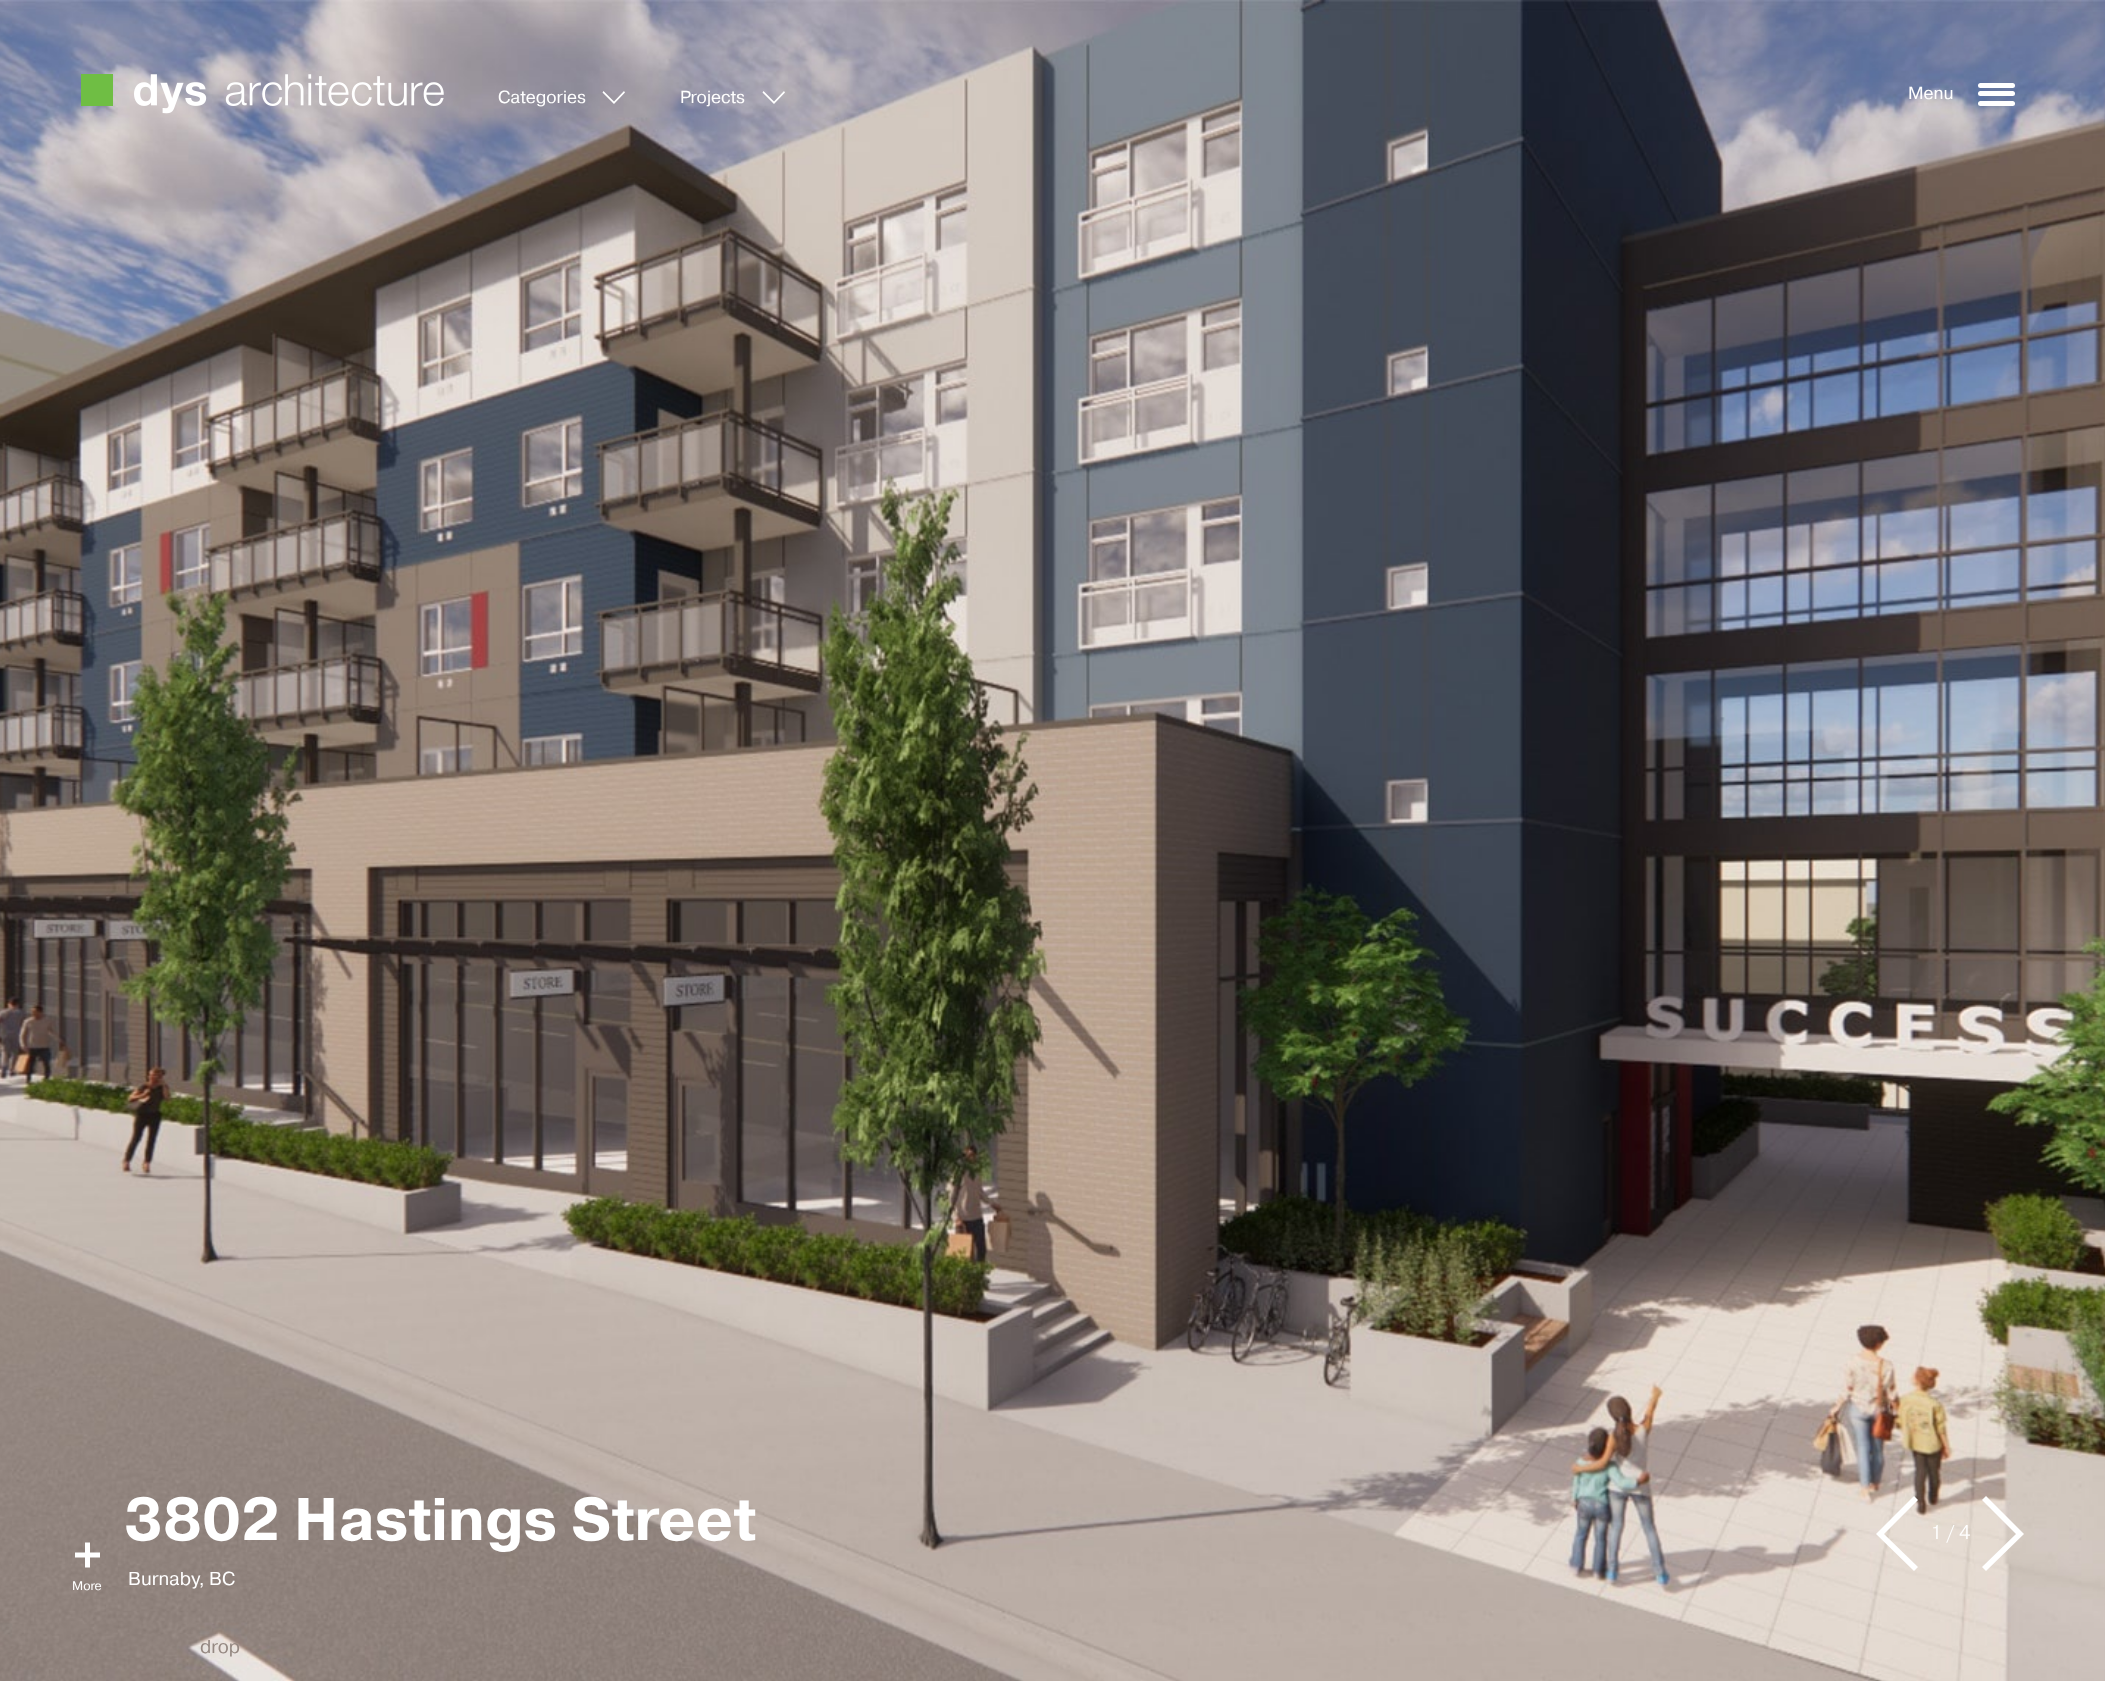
(async () => {
  const canvas = document.querySelector("canvas");
  canvas.width = 2105;
  canvas.height = 1681;
  const ctx = canvas.getContext("2d");
  ctx.miterLimit = 4;
  ctx.fontKerning = "normal";
  async function loadImage(src) {
    const img = new Image();
    img.src = src;
    await img.decode();
    return img;
  }
  let path;

  ctx.fillStyle = "#ffffff";
  ctx.fillRect(0, 0, 2105, 1681);
  ctx.drawImage(await loadImage("img/2.png"), 0, 0, 2105, 1681);
  ctx.drawImage(await loadImage("img/1.png"), 81, 74, 363, 40);
  path = new Path2D("M625 92.5L614 104L602.5 92.5L603.5 91L614 101.5L624 91Z");
  ctx.fill(path);
  path = new Path2D("M785 92.5L774 104L762.5 92.5L763.5 91L774 101.5L784 91Z");
  ctx.fill(path);
  ctx.beginPath();
  ctx.roundRect(1978, 91, 37, 5, 2.5);
  ctx.fill();
  ctx.beginPath();
  ctx.roundRect(1978, 83, 37, 5, 2.5);
  ctx.fill();
  ctx.beginPath();
  ctx.roundRect(1978, 101, 37, 5, 2.5);
  ctx.fill();
  path = new Path2D("M1914 1571L1876 1534L1914 1496L1918 1500L1884 1534L1918 1567Z");
  ctx.fill(path);
  path = new Path2D("M1986 1496L2024 1534L1986 1571L1982 1567L2016 1534L1982 1500Z");
  ctx.fill(path);
  path = new Path2D("M75 1552.5H100V1557.5H75ZM85 1542.5H90V1567.5H85Z");
  ctx.fill(path);
  ctx.font = "17.5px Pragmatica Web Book";
  for (const [text, x, y] of [
    ["Categories", 498, 103],
    ["Projects", 680, 103],
    ["Menu", 1908, 99],
  ]) {
    ctx.fillText(text, x, y);
  }
  ctx.font = "bold 60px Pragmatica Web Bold";
  ctx.fillText("3802 Hastings Street", 124, 1540);
  ctx.font = "18.75px Pragmatica Web Book";
  ctx.fillText("Burnaby, BC", 128, 1585);
  ctx.fillStyle = "#958882";
  ctx.fillText("drop", 200, 1653);
  ctx.font = "300 20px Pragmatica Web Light";
  ctx.fillStyle = "#ffffff";
  ctx.fillText("1 / 4", 1930, 1539);
  ctx.font = "12.5px Pragmatica Web Book";
  ctx.fillText("More", 72, 1590);
})();
